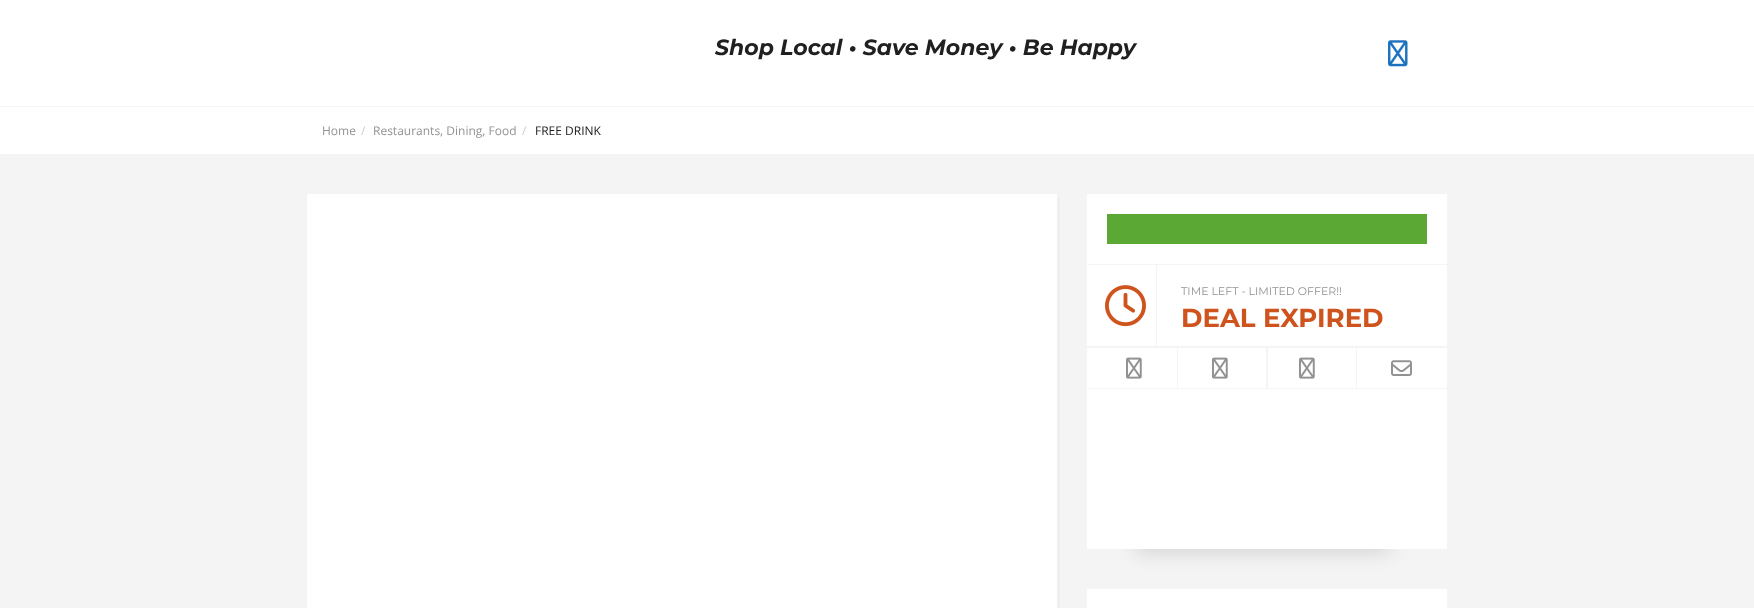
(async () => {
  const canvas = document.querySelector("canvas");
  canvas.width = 1754;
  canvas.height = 608;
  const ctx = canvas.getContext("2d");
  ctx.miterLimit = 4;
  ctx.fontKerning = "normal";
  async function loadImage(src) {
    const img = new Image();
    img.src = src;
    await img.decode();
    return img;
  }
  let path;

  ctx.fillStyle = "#f4f4f4";
  ctx.fillRect(0, 0, 1754, 608);
  ctx.fillStyle = "#ffffff";
  ctx.fillRect(0, 0, 1754, 106);
  ctx.drawImage(await loadImage("img/1.png"), 1388, 40, 20, 27);
  ctx.fillRect(0, 107, 1754, 47);
  ctx.fillStyle = "#efefef";
  path = new Path2D("M310 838V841H1060V197H1057V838Z");
  ctx.fill(path);
  ctx.fillStyle = "#ffffff";
  ctx.fillRect(307, 194, 750, 414);
  ctx.fillStyle = "rgba(0, 0, 0, 0.6)";
  ctx.filter = "blur(10.5px)";
  ctx.beginPath();
  ctx.rect(1136, 542, 254, 4);
  ctx.fill();
  ctx.filter = "none";
  for (const [x, y, w, h, color] of [
    [1087, 194, 360, 355, "#ffffff"],
    [1107, 214, 320, 30, "#5ba835"],
    [1087, 264, 360, 1, "#f4f4f4"],
    [1087, 346, 360, 2, "#f4f4f4"],
    [1156, 265, 1, 81, "#f4f4f4"],
  ]) {
    ctx.fillStyle = color;
    ctx.fillRect(x, y, w, h);
  }
  ctx.drawImage(await loadImage("img/2.png"), 1105, 285, 41, 42);
  ctx.fillRect(1087, 388, 360, 1);
  ctx.drawImage(await loadImage("img/3.png"), 1126, 357, 16, 22);
  ctx.fillRect(1266, 347, 2, 41);
  ctx.fillRect(1177, 347, 1, 41);
  ctx.drawImage(await loadImage("img/3.png"), 1212, 357, 16, 22);
  ctx.fillRect(1356, 347, 1, 41);
  ctx.drawImage(await loadImage("img/3.png"), 1299, 357, 16, 22);
  ctx.drawImage(await loadImage("img/4.png"), 1391, 360, 21, 16);
  ctx.fillStyle = "#ffffff";
  ctx.fillRect(1087, 589, 360, 19);
  ctx.font = "italic bold 22px Montserrat";
  ctx.fillStyle = "#202020";
  ctx.fillText("Shop Local • Save Money • Be Happy", 715, 55);
  ctx.font = "12px Open Sans";
  ctx.fillStyle = "#919394";
  ctx.fillText("Home", 322, 135);
  ctx.fillStyle = "#cccccc";
  ctx.fillText("/", 361, 135);
  ctx.fillStyle = "#919394";
  ctx.fillText("Restaurants, Dining, Food", 373, 135);
  ctx.fillStyle = "#cccccc";
  ctx.fillText("/", 522, 135);
  ctx.fillStyle = "#202020";
  ctx.fillText("FREE DRINK", 535, 135);
  ctx.font = "11px Montserrat";
  ctx.fillStyle = "#919394";
  ctx.fillText("TIME LEFT - LIMITED OFFER!!", 1181, 295);
  ctx.font = "bold 26px Montserrat";
  ctx.fillStyle = "#ce531c";
  ctx.fillText("DEAL EXPIRED", 1181, 327);
})();
